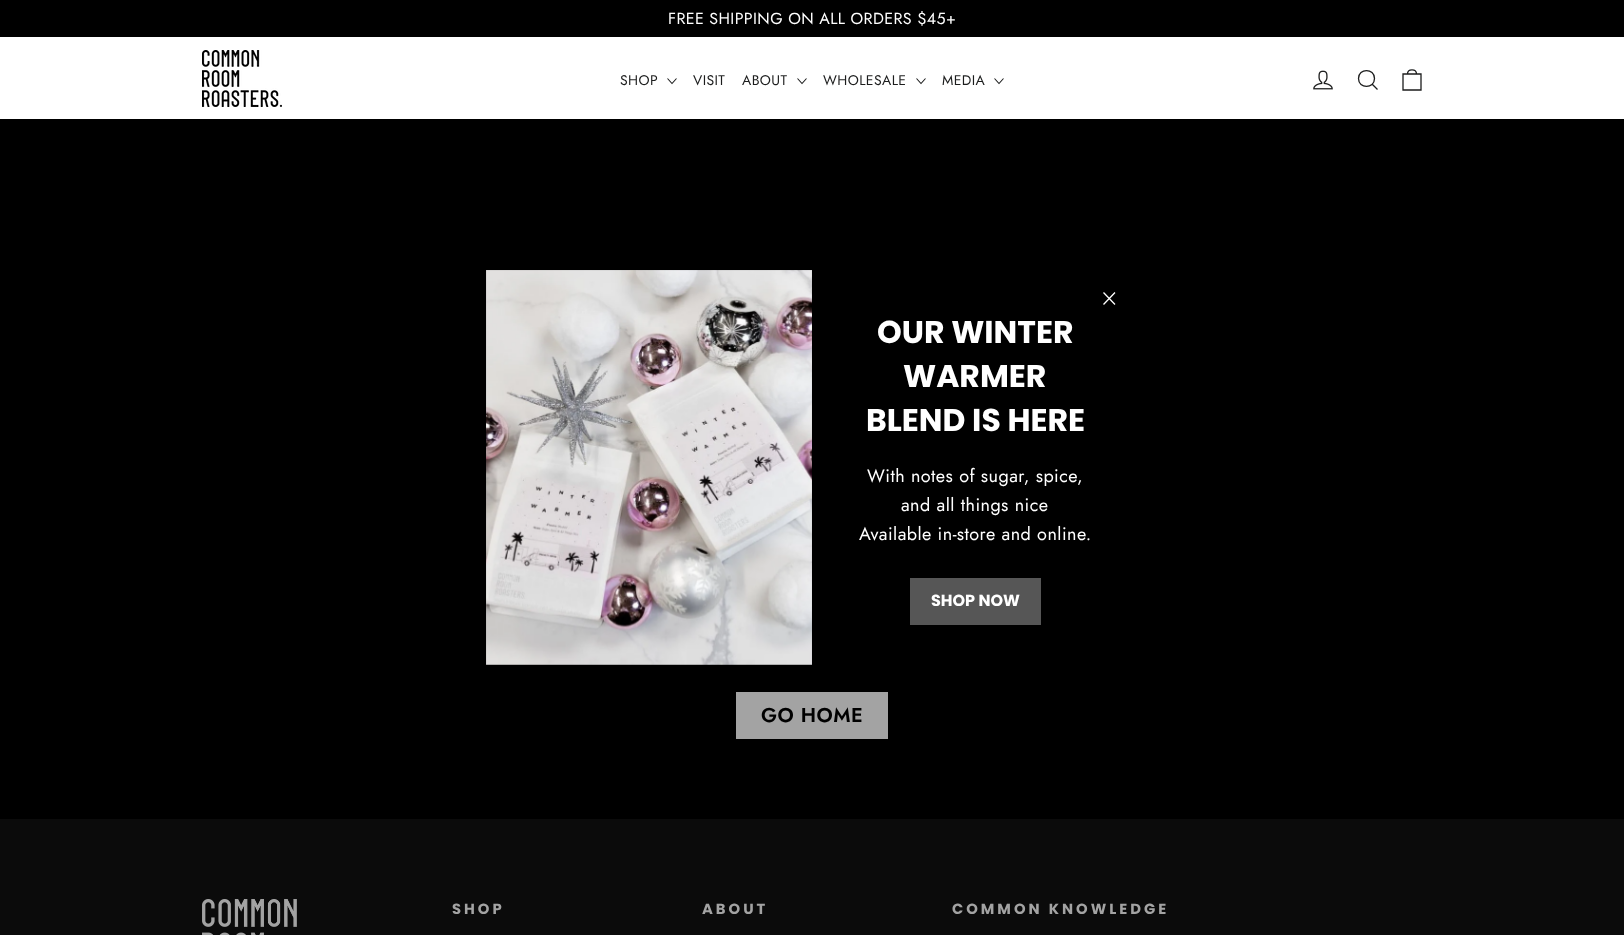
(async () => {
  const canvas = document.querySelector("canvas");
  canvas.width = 1624;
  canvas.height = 935;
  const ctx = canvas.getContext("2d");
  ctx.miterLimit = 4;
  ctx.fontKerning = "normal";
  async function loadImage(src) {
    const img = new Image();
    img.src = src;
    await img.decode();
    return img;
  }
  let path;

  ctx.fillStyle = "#000000";
  ctx.fillRect(0, 0, 1624, 935);
  ctx.fillStyle = "#ffffff";
  ctx.fillRect(0, 37, 1624, 82);
  ctx.drawImage(await loadImage("img/1.png"), 202, 50, 80, 57);
  path = new Path2D("M667.5 78.5L672 83.5L676.5 78.5");
  ctx.strokeStyle = "#1c1d1d";
  ctx.lineWidth = 1.1;
  ctx.stroke(path);
  path = new Path2D("M797.5 78.5L802 83.5L806.5 78.5");
  ctx.stroke(path);
  path = new Path2D("M916.5 78.5L921 83.5L925.5 78.5");
  ctx.stroke(path);
  path = new Path2D("M994.5 78.5L999 83.5L1003.5 78.5");
  ctx.stroke(path);
  ctx.drawImage(await loadImage("img/2.png"), 1313, 70, 20, 20);
  path = new Path2D("M1374.5 78.5C1374.5 89 1358.5 89 1358.5 78.5C1358.5 68 1374.5 68 1374.5 78.5ZM1377.5 89.5L1372.5 84.5");
  ctx.lineWidth = 1.3;
  ctx.stroke(path);
  path = new Path2D("M1403 74H1421V90H1403ZM1407.5 74C1407.5 68.5 1416.5 68.5 1416.5 74");
  ctx.stroke(path);
  path = new Path2D("M1103.5 292.5L1115 304.5M1115 292.5L1103.5 304.5");
  ctx.strokeStyle = "#ffffff";
  ctx.stroke(path);
  ctx.drawImage(await loadImage("img/3.png"), 486, 270, 326, 395);
  for (const [x, y, w, h, color] of [
    [910, 578, 131, 47, "#565656"],
    [736, 692, 152, 47, "#a3a3a3"],
    [0, 819, 1624, 116, "#0b0b0b"],
  ]) {
    ctx.fillStyle = color;
    ctx.fillRect(x, y, w, h);
  }
  ctx.drawImage(await loadImage("img/4.png"), 202, 899, 95, 36);
  ctx.letterSpacing = "0.4px";
  ctx.font = "16px Jost";
  ctx.fillStyle = "#ffffff";
  ctx.fillText("FREE SHIPPING ON ALL ORDERS $45+", 668, 24);
  ctx.font = "14px Jost";
  ctx.fillStyle = "#1c1d1d";
  for (const [text, x, y] of [
    ["SHOP", 620, 85],
    ["VISIT", 693, 85],
    ["ABOUT", 742, 85],
    ["WHOLESALE", 823, 85],
    ["MEDIA", 942, 85],
  ]) {
    ctx.fillText(text, x, y);
  }
  ctx.letterSpacing = "0px";
  ctx.font = "bold 31.5px Poppins";
  ctx.fillStyle = "#ffffff";
  for (const [text, x, y] of [
    ["OUR WINTER", 877, 343],
    ["WARMER", 903, 387],
    ["BLEND IS HERE", 866, 431],
  ]) {
    ctx.fillText(text, x, y);
  }
  ctx.letterSpacing = "0.45px";
  ctx.font = "18px Jost";
  for (const [text, x, y] of [
    ["With notes of sugar, spice,", 867, 482],
    ["and all things nice", 901, 511],
    ["Available in-store and online.", 859, 540],
  ]) {
    ctx.fillText(text, x, y);
  }
  ctx.letterSpacing = "0px";
  ctx.font = "bold 16px Poppins";
  ctx.fillText("SHOP NOW", 931, 606);
  ctx.letterSpacing = "0.5px";
  ctx.font = "600 20px Jost";
  ctx.fillStyle = "#000000";
  ctx.fillText("GO HOME", 761, 722);
  ctx.letterSpacing = "3px";
  ctx.font = "bold 14.75px Poppins";
  ctx.fillStyle = "#a3a3a3";
  for (const [text, x, y] of [
    ["SHOP", 452, 914],
    ["ABOUT", 702, 914],
    ["COMMON KNOWLEDGE", 952, 914],
  ]) {
    ctx.fillText(text, x, y);
  }
})();
